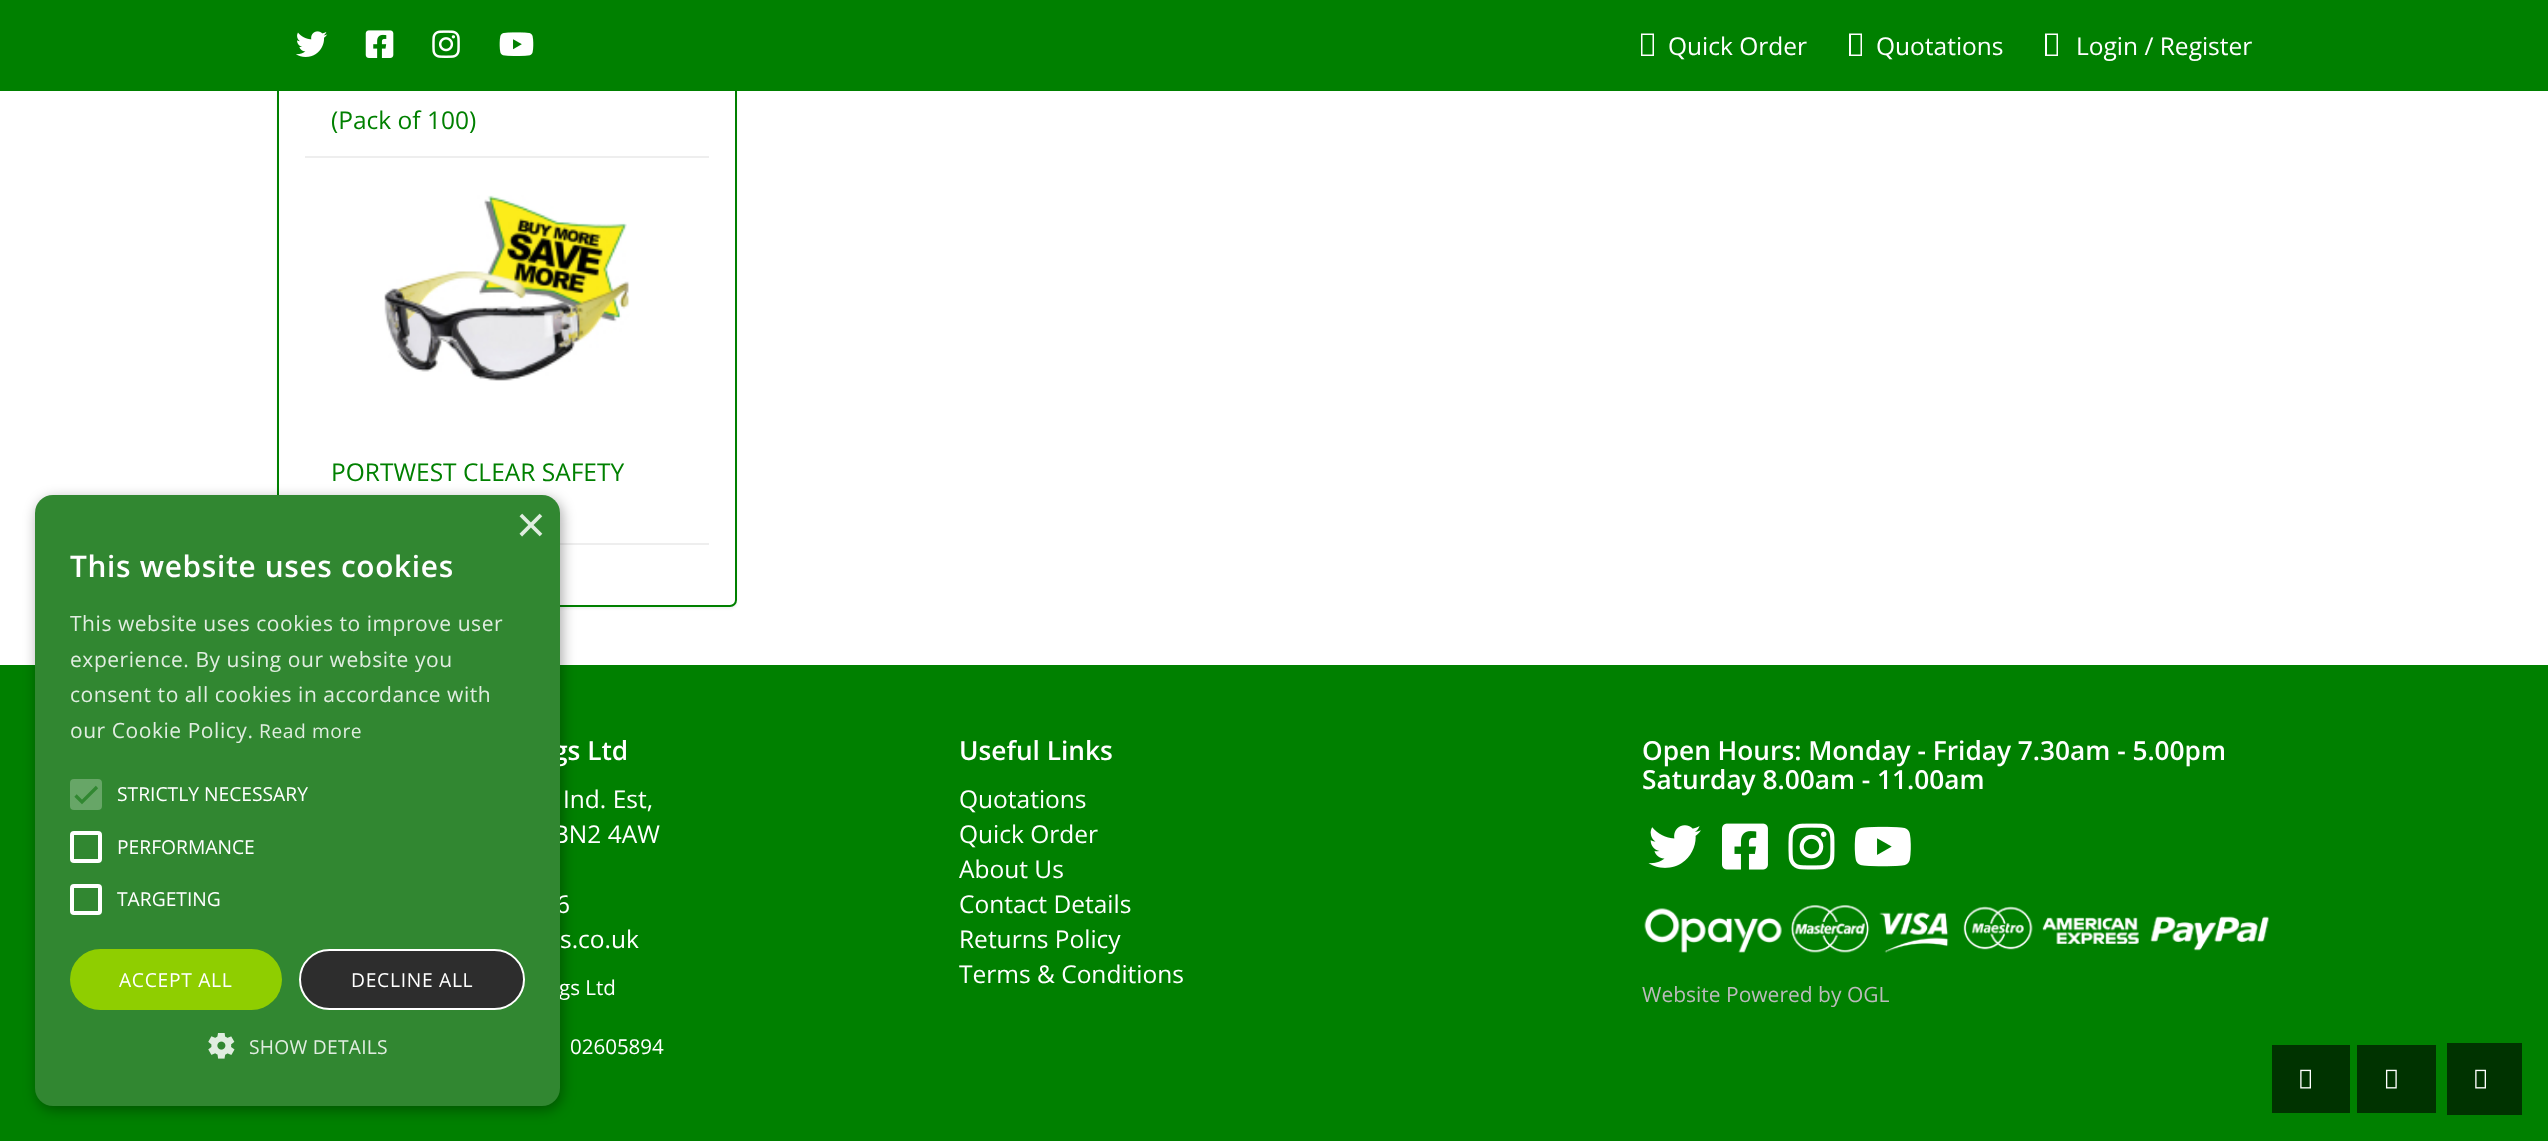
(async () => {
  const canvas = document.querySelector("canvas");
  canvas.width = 2548;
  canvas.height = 1141;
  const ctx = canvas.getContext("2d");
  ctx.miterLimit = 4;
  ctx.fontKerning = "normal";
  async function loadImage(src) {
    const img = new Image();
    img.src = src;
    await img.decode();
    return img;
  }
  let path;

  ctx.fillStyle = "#ffffff";
  ctx.fillRect(0, 0, 2548, 1141);
  ctx.fillStyle = "rgba(0, 0, 0, 0.05)";
  ctx.filter = "blur(1px)";
  ctx.beginPath();
  ctx.roundRect(277, -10, 460, 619, 7);
  ctx.fill();
  ctx.filter = "none";
  ctx.fillStyle = "#ffffff";
  ctx.beginPath();
  ctx.roundRect(278, -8, 458, 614, 6);
  ctx.fill();
  ctx.strokeStyle = "#008000";
  ctx.lineWidth = 2;
  ctx.stroke();
  ctx.fillStyle = "#008000";
  ctx.fillRect(0, 0, 2548, 91);
  ctx.drawImage(await loadImage("img/1.png"), 296, 31, 32, 26);
  ctx.drawImage(await loadImage("img/2.png"), 365, 30, 29, 28);
  ctx.drawImage(await loadImage("img/3.png"), 432, 30, 28, 28);
  ctx.drawImage(await loadImage("img/4.png"), 499, 32, 35, 24);
  ctx.fillStyle = "#ffffff";
  path = new Path2D("M1641 56V33.5H1654V56ZM1642.5 54.5H1652.5V35H1642.5Z");
  ctx.fill(path);
  path = new Path2D("M1849 56V33.5H1862V56ZM1851 54.5H1860.5V35H1851Z");
  ctx.fill(path);
  path = new Path2D("M2045 56V33.5H2058V56ZM2047 54.5H2056.5V35H2047Z");
  ctx.fill(path);
  ctx.fillStyle = "#eeeeee";
  ctx.fillRect(305, 156, 404, 2);
  ctx.drawImage(await loadImage("img/5.png"), 384, 195, 246, 186);
  ctx.fillRect(560, 543, 149, 2);
  ctx.fillStyle = "#008000";
  ctx.fillRect(0, 665, 2548, 476);
  ctx.fillStyle = "rgba(0, 0, 0, 0.35)";
  ctx.filter = "blur(7px)";
  ctx.beginPath();
  ctx.roundRect(37, 499, 525, 611, 18);
  ctx.fill();
  ctx.filter = "none";
  ctx.drawImage(await loadImage("img/7.png"), 1648, 825, 53, 43);
  ctx.drawImage(await loadImage("img/8.png"), 1722, 823, 46, 47);
  ctx.drawImage(await loadImage("img/9.png"), 1788, 823, 47, 47);
  ctx.drawImage(await loadImage("img/10.png"), 1854, 826, 57, 41);
  ctx.drawImage(await loadImage("img/11.png"), 1644, 905, 625, 48);
  ctx.fillStyle = "#003300";
  ctx.fillRect(2272, 1045, 78, 68);
  ctx.fillRect(2357, 1045, 79, 68);
  ctx.drawImage(await loadImage("img/12.png"), 2300, 1069, 11, 20);
  ctx.drawImage(await loadImage("img/13.png"), 2385, 1069, 12, 20);
  ctx.fillRect(2447, 1043, 75, 72);
  ctx.drawImage(await loadImage("img/12.png"), 2475, 1069, 11, 20);
  ctx.font = "24.5px Open Sans";
  ctx.fillStyle = "#ffffff";
  for (const [text, x, y] of [
    ["Quick Order", 1668, 55],
    ["Quotations", 1876, 55],
    ["Login / Register", 2076, 55],
  ]) {
    ctx.fillText(text, x, y);
  }
  ctx.fillStyle = "#008000";
  ctx.fillText("(Pack of 100)", 331, 129);
  ctx.fillText("PORTWEST CLEAR SAFETY", 331, 481);
  ctx.font = "600 26.25px Open Sans";
  ctx.fillStyle = "#ffffff";
  ctx.fillText("gs Ltd", 553, 760);
  ctx.font = "24.5px Open Sans";
  for (const [text, x, y] of [
    ["Ind. Est,", 563, 808],
    ["BN2 4AW", 553, 843],
    ["6", 556, 913],
    ["s.co.uk", 560, 948],
  ]) {
    ctx.fillText(text, x, y);
  }
  ctx.font = "20.5px Open Sans";
  ctx.fillText("gs Ltd", 559, 995);
  ctx.fillStyle = "#318731";
  ctx.beginPath();
  ctx.roundRect(35, 495, 525, 611, 18);
  ctx.fill();
  ctx.font = "51px Liberation Sans";
  ctx.fillStyle = "#e0ede0";
  ctx.fillText("×", 516, 542);
  ctx.drawImage(await loadImage("img/6.png"), 208, 1033, 27, 26);
  ctx.letterSpacing = "0.25px";
  ctx.font = "19.25px Open Sans";
  ctx.fillText("SHOW DETAILS", 249, 1054);
  ctx.beginPath();
  ctx.roundRect(72, 886, 28, 27, 2);
  ctx.strokeStyle = "#ffffff";
  ctx.lineWidth = 4;
  ctx.stroke();
  ctx.beginPath();
  ctx.roundRect(72, 833, 28, 28, 2);
  ctx.stroke();
  ctx.fillStyle = "#67a667";
  ctx.beginPath();
  ctx.roundRect(70, 779, 32, 31, 4);
  ctx.fill();
  path = new Path2D("M75.5 795.5L82 802L97 787");
  ctx.strokeStyle = "#318731";
  ctx.lineWidth = 3.2;
  ctx.stroke(path);
  ctx.letterSpacing = "0.55px";
  ctx.fillStyle = "#e0ede0";
  ctx.fillText("Read more", 259, 738);
  ctx.font = "21px Open Sans";
  for (const [text, x, y] of [
    ["our Cookie Policy.", 70, 738],
    ["consent to all cookies in accordance with", 70, 702],
    ["experience. By using our website you", 70, 667],
    ["This website uses cookies to improve user", 70, 631],
  ]) {
    ctx.fillText(text, x, y);
  }
  ctx.fillStyle = "#2d2d2d";
  ctx.beginPath();
  ctx.roundRect(300, 950, 224, 59, 29.5);
  ctx.fill();
  ctx.strokeStyle = "#ffffff";
  ctx.lineWidth = 2;
  ctx.stroke();
  ctx.letterSpacing = "0.7px";
  ctx.font = "19.25px Open Sans";
  ctx.fillStyle = "#ffffff";
  ctx.fillText("DECLINE ALL", 351, 987);
  ctx.fillStyle = "#8fce00";
  ctx.beginPath();
  ctx.roundRect(70, 949, 212, 61, 30.5);
  ctx.fill();
  ctx.fillStyle = "#ffffff";
  ctx.fillText("ACCEPT ALL", 119, 987);
  ctx.letterSpacing = "0px";
  for (const [text, x, y] of [
    ["TARGETING", 117, 906],
    ["PERFORMANCE", 117, 854],
    ["STRICTLY NECESSARY", 117, 801],
  ]) {
    ctx.fillText(text, x, y);
  }
  ctx.letterSpacing = "0.7px";
  ctx.font = "600 29.75px Open Sans";
  ctx.fillText("This website uses cookies", 70, 577);
  ctx.letterSpacing = "0px";
  ctx.font = "20.5px Open Sans";
  ctx.fillText("02605894", 570, 1054);
  ctx.font = "600 26.25px Open Sans";
  ctx.fillText("Useful Links", 959, 760);
  ctx.font = "24.5px Open Sans";
  for (const [text, x, y] of [
    ["Quotations", 959, 808],
    ["Quick Order", 959, 843],
    ["About Us", 959, 878],
    ["Contact Details", 959, 913],
    ["Returns Policy", 959, 948],
    ["Terms & Conditions", 959, 983],
  ]) {
    ctx.fillText(text, x, y);
  }
  ctx.font = "600 26.25px Open Sans";
  ctx.fillText("Open Hours: Monday - Friday 7.30am - 5.00pm", 1642, 760);
  ctx.fillText("Saturday 8.00am - 11.00am", 1642, 789);
  ctx.font = "21px Open Sans";
  ctx.fillStyle = "#bbbbbb";
  ctx.fillText("Website Powered by OGL", 1642, 1002);
})();
